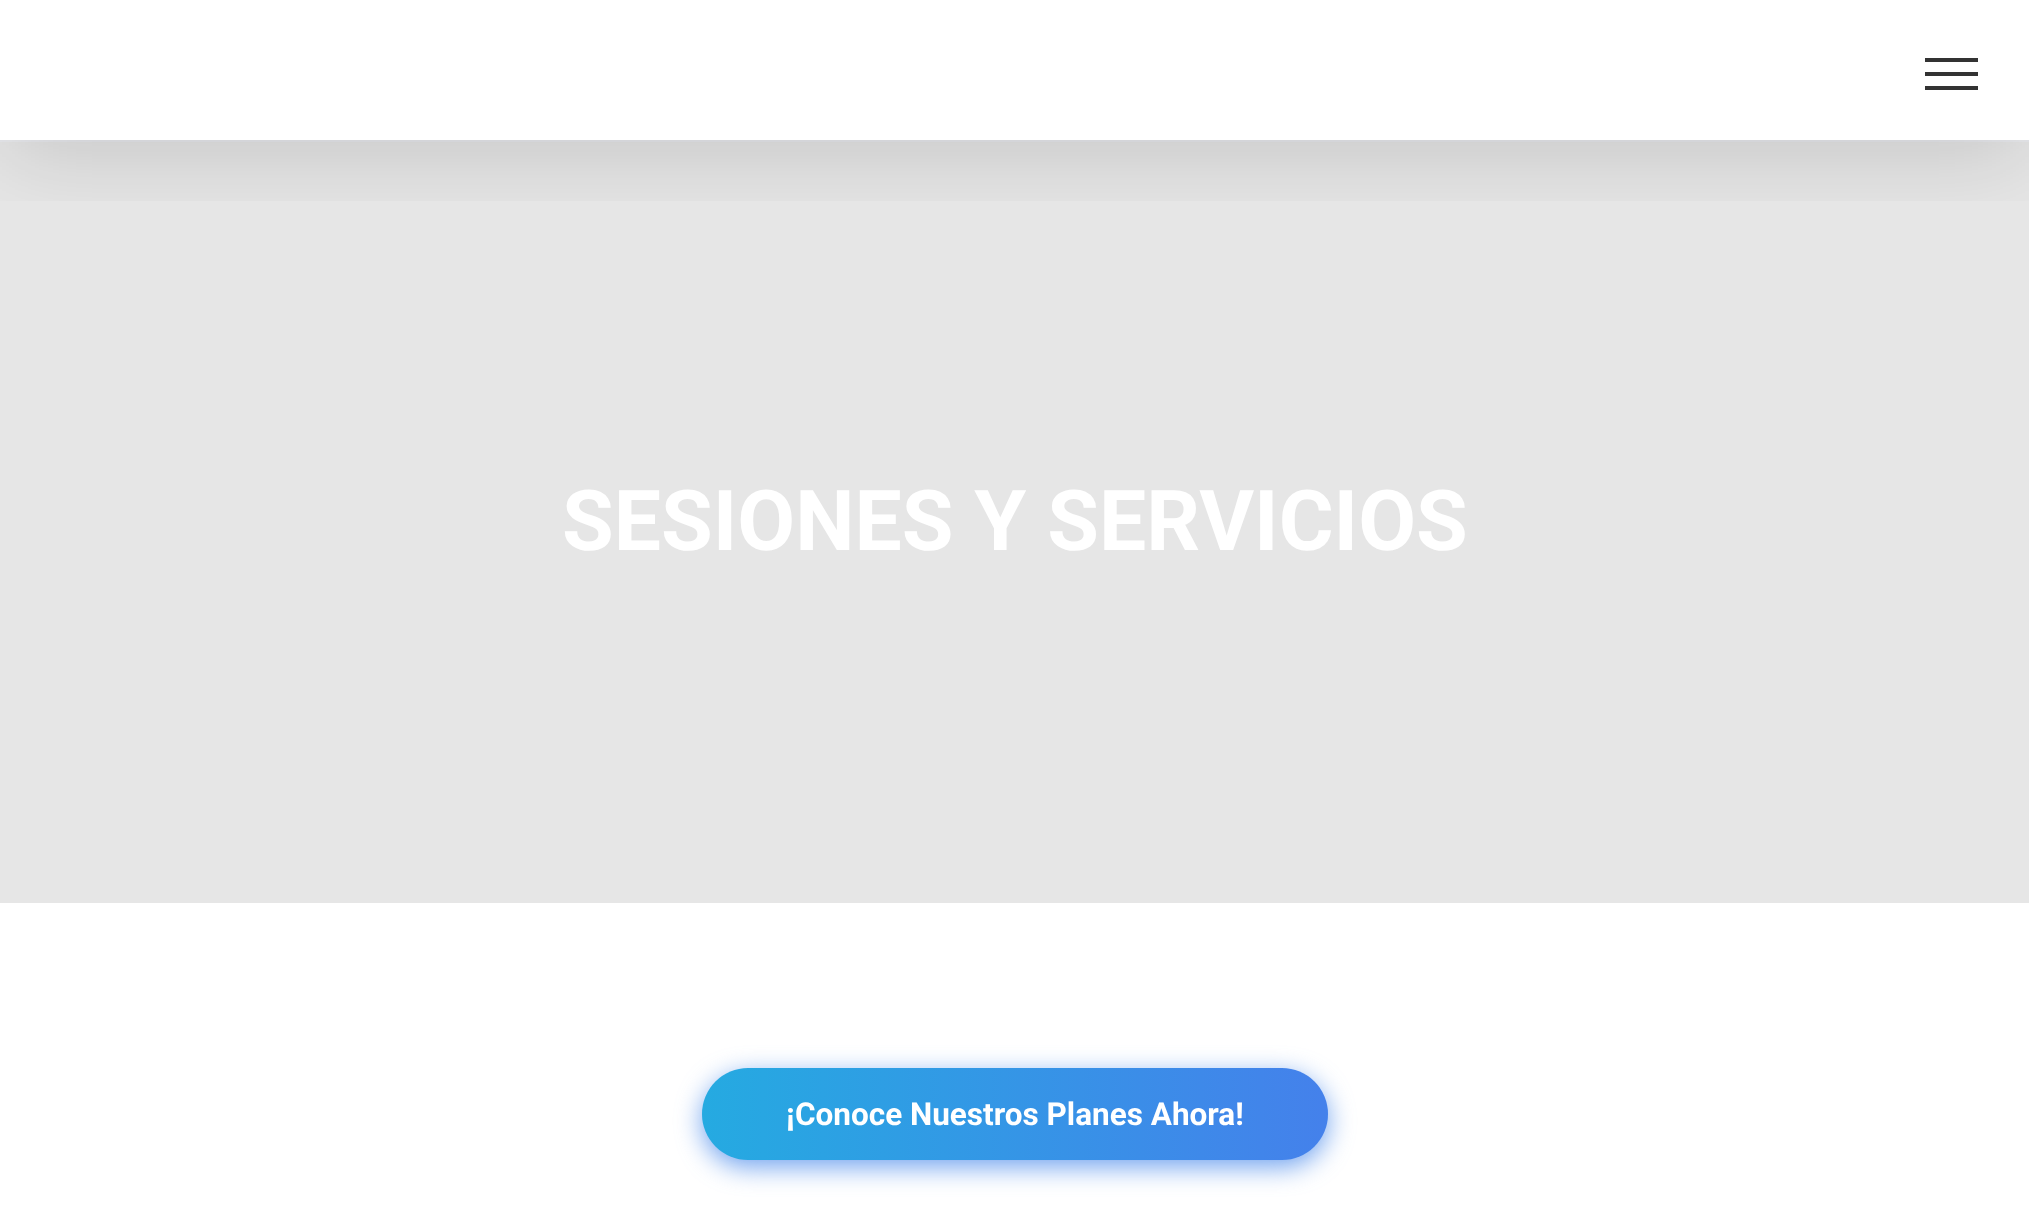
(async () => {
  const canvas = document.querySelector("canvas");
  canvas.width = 2029;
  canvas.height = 1217;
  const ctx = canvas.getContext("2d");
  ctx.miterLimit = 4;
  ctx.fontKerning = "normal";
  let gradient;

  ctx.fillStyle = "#ffffff";
  ctx.fillRect(0, 0, 2029, 1217);
  ctx.fillStyle = "#e9eaee";
  ctx.fillRect(0, 140, 2029, 2);
  ctx.fillStyle = "#e6e6e6";
  ctx.fillRect(0, 142, 2029, 761);
  ctx.save();
  ctx.beginPath();
  ctx.rect(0, 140, 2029, 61);
  ctx.clip();
  ctx.fillStyle = "rgba(0, 0, 0, 0.14)";
  ctx.filter = "blur(44px)";
  ctx.beginPath();
  ctx.rect(4, 21, 2023, 133);
  ctx.fill();
  ctx.filter = "none";
  ctx.restore();
  for (const [x, y, w, h, color] of [
    [1925, 58, 53, 4, "#333333"],
    [1925, 72, 53, 4, "#333333"],
    [1925, 86, 53, 4, "#333333"],
  ]) {
    ctx.fillStyle = color;
    ctx.fillRect(x, y, w, h);
  }
  ctx.fillStyle = "rgba(65, 132, 234, 0.75)";
  ctx.filter = "blur(13px)";
  ctx.beginPath();
  ctx.roundRect(702, 1075, 626, 92, 46);
  ctx.fill();
  ctx.filter = "none";
  gradient = ctx.createLinearGradient(702, 1114, 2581, 1114);
  gradient.addColorStop(0, "#25aae1");
  gradient.addColorStop(0.33, "#4481eb");
  gradient.addColorStop(0.67, "#04befe");
  gradient.addColorStop(1, "#3f86ed");
  ctx.fillStyle = gradient;
  ctx.beginPath();
  ctx.roundRect(702, 1068, 626, 92, 46);
  ctx.fill();
  ctx.font = "bold 84px Roboto";
  ctx.fillStyle = "#ffffff";
  ctx.fillText("SESIONES Y SERVICIOS", 562, 550);
  ctx.font = "bold 31.5px Roboto";
  ctx.fillText("¡Conoce Nuestros Planes Ahora!", 786, 1125);
})();
